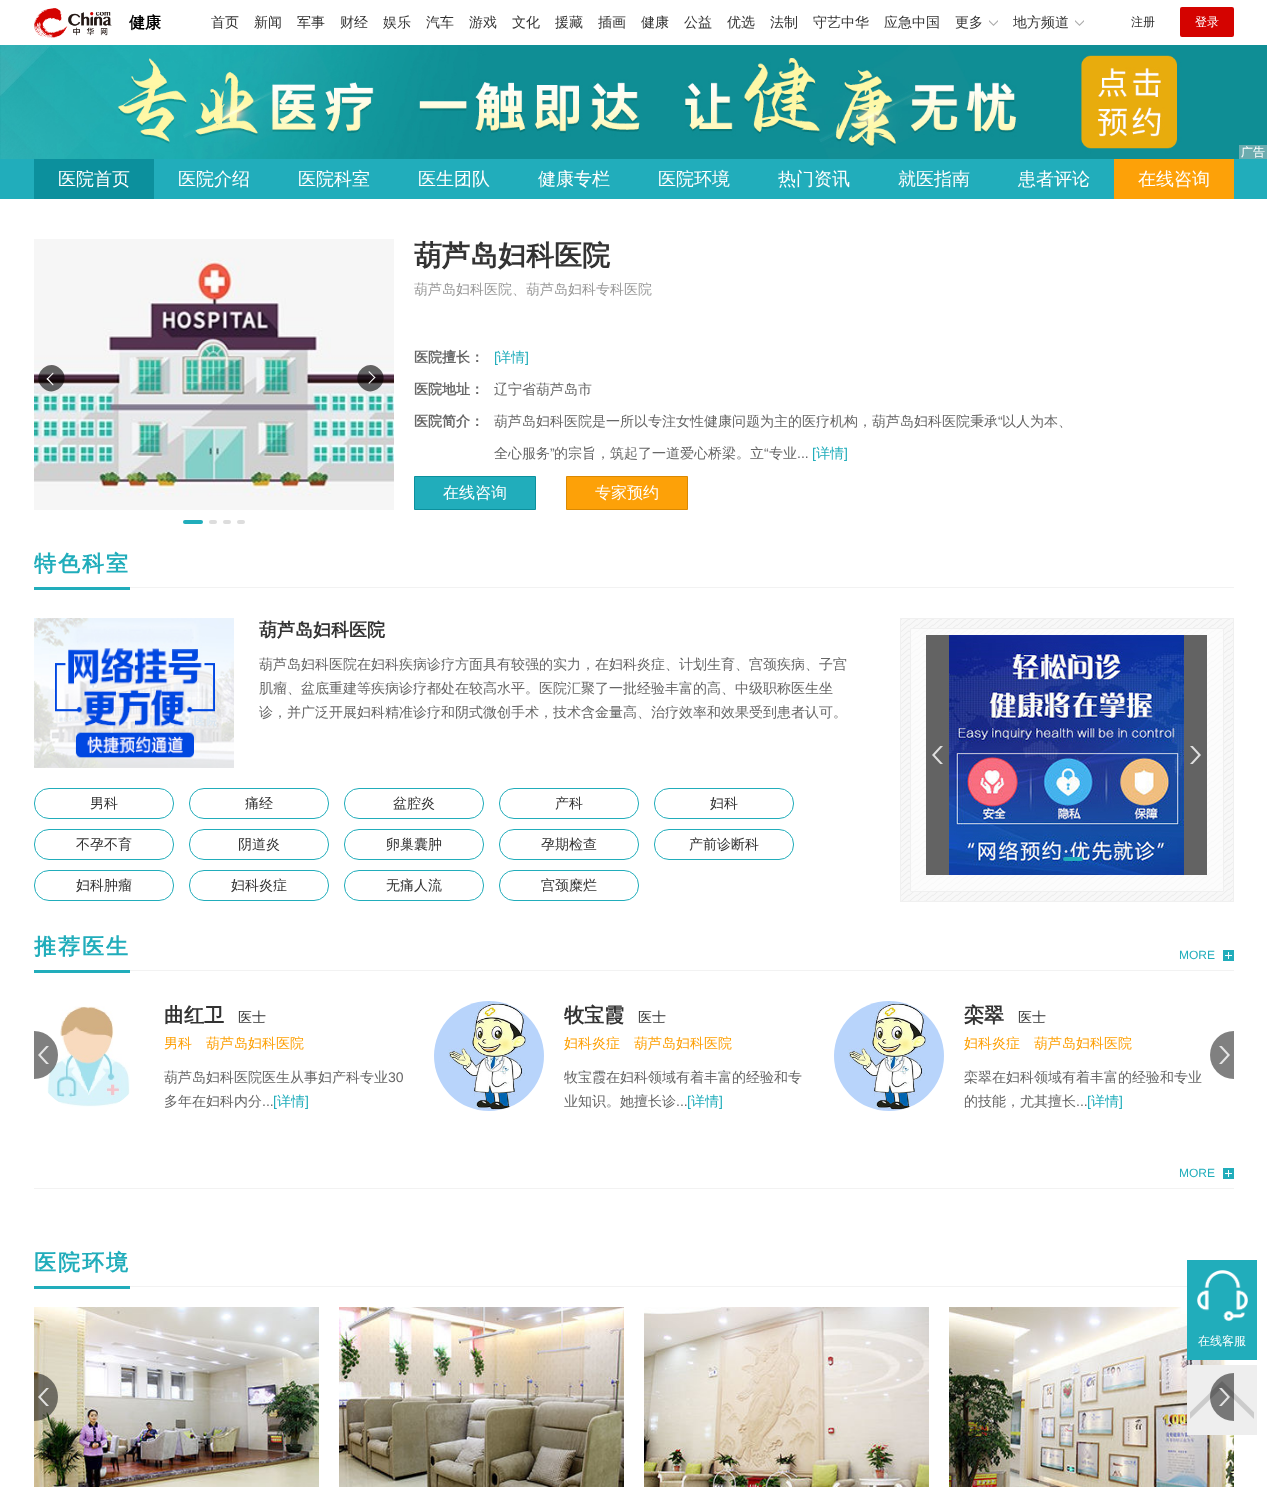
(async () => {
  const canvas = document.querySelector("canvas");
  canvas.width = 1267;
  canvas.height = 1495;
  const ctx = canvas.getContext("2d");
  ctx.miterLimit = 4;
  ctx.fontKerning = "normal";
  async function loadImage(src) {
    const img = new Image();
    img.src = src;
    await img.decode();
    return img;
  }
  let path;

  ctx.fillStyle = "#ffffff";
  ctx.fillRect(0, 0, 1267, 1495);
  ctx.drawImage(await loadImage("img/1.png"), 34, 8, 78, 30);
  ctx.drawImage(await loadImage("img/2.png"), 989, 20, 9, 6);
  ctx.drawImage(await loadImage("img/2.png"), 1075, 20, 9, 6);
  ctx.fillStyle = "#d40300";
  ctx.beginPath();
  ctx.roundRect(1180, 7, 54, 30, 2);
  ctx.fill();
  ctx.drawImage(await loadImage("img/3.png"), 0, 45, 1267, 114);
  for (const [x, y, w, h, color] of [
    [1239, 145, 28, 14, "#6cacaf"],
    [0, 159, 1267, 40, "#21adbb"],
    [34, 159, 120, 40, "#0c909d"],
    [1114, 159, 120, 40, "#fda108"],
  ]) {
    ctx.fillStyle = color;
    ctx.fillRect(x, y, w, h);
  }
  ctx.drawImage(await loadImage("img/4.png"), 34, 239, 360, 271);
  ctx.fillStyle = "rgba(0, 0, 0, 0.6)";
  path = new Path2D("M42.5 387.5C30 375.5 48.5 357 60.5 369C73 381 54.5 399.5 42.5 387.5Z");
  ctx.fill(path);
  ctx.fillStyle = "#ffffff";
  path = new Path2D("M53 385.5L46.5 379L47.5 378L53.5 384.5Z");
  ctx.fill(path);
  path = new Path2D("M47.5 379.5L46.5 379L53 372.5L53.5 373.5Z");
  ctx.fill(path);
  ctx.fillStyle = "rgba(0, 0, 0, 0.6)";
  path = new Path2D("M379.5 369C392 381 373.5 399.5 361.5 387.5C349 375.5 367.5 357 379.5 369Z");
  ctx.fill(path);
  ctx.fillStyle = "#ffffff";
  path = new Path2D("M369 371L375.5 377.5L374.5 378L368.5 372Z");
  ctx.fill(path);
  path = new Path2D("M374.5 377L375.5 377.5L369 384L368.5 383Z");
  ctx.fill(path);
  ctx.fillStyle = "#21adbb";
  ctx.beginPath();
  ctx.roundRect(183, 520, 20, 4, 2);
  ctx.fill();
  ctx.fillStyle = "#dddddd";
  ctx.beginPath();
  ctx.roundRect(209, 520, 8, 4, 2);
  ctx.fill();
  ctx.beginPath();
  ctx.roundRect(223, 520, 8, 4, 2);
  ctx.fill();
  ctx.beginPath();
  ctx.roundRect(237, 520, 8, 4, 2);
  ctx.fill();
  ctx.fillStyle = "#21adbb";
  ctx.beginPath();
  ctx.rect(414.5, 476.5, 121, 33);
  ctx.fill();
  ctx.strokeStyle = "#0c909d";
  ctx.stroke();
  ctx.fillStyle = "#fda108";
  ctx.beginPath();
  ctx.rect(566.5, 476.5, 121, 33);
  ctx.fill();
  ctx.strokeStyle = "#da8903";
  ctx.stroke();
  ctx.fillStyle = "#f2f2f2";
  ctx.fillRect(130, 587, 1104, 1);
  ctx.fillStyle = "#21adbb";
  ctx.fillRect(34, 587, 96, 3);
  ctx.drawImage(await loadImage("img/5.png"), 34, 618, 200, 150);
  ctx.beginPath();
  ctx.roundRect(34.5, 788.5, 139, 30, 14.5);
  ctx.strokeStyle = "#21adbb";
  ctx.stroke();
  ctx.beginPath();
  ctx.roundRect(189.5, 788.5, 139, 30, 14.5);
  ctx.stroke();
  ctx.beginPath();
  ctx.roundRect(344.5, 788.5, 139, 30, 14.5);
  ctx.stroke();
  ctx.beginPath();
  ctx.roundRect(499.5, 788.5, 139, 30, 14.5);
  ctx.stroke();
  ctx.beginPath();
  ctx.roundRect(654.5, 788.5, 139, 30, 14.5);
  ctx.stroke();
  ctx.beginPath();
  ctx.roundRect(34.5, 829.5, 139, 30, 14.5);
  ctx.stroke();
  ctx.beginPath();
  ctx.roundRect(189.5, 829.5, 139, 30, 14.5);
  ctx.stroke();
  ctx.beginPath();
  ctx.roundRect(344.5, 829.5, 139, 30, 14.5);
  ctx.stroke();
  ctx.beginPath();
  ctx.roundRect(499.5, 829.5, 139, 30, 14.5);
  ctx.stroke();
  ctx.beginPath();
  ctx.roundRect(654.5, 829.5, 139, 30, 14.5);
  ctx.stroke();
  ctx.beginPath();
  ctx.roundRect(34.5, 870.5, 139, 30, 14.5);
  ctx.stroke();
  ctx.beginPath();
  ctx.roundRect(189.5, 870.5, 139, 30, 14.5);
  ctx.stroke();
  ctx.beginPath();
  ctx.roundRect(344.5, 870.5, 139, 30, 14.5);
  ctx.stroke();
  ctx.beginPath();
  ctx.roundRect(499.5, 870.5, 139, 30, 14.5);
  ctx.stroke();
  ctx.drawImage(await loadImage("img/6.png"), 901, 619, 332, 282);
  ctx.strokeStyle = "#f0f0f0";
  ctx.strokeRect(900.5, 618.5, 333, 283);
  ctx.fillStyle = "rgba(255, 255, 255, 0.6)";
  ctx.beginPath();
  ctx.rect(910.5, 628.5, 313, 263);
  ctx.fill();
  ctx.stroke();
  ctx.fillStyle = "#636363";
  ctx.fillRect(926, 635, 23, 240);
  ctx.drawImage(await loadImage("img/7.png"), 932, 746, 11, 18);
  ctx.drawImage(await loadImage("img/8.png"), 949, 635, 235, 240);
  ctx.fillRect(1184, 635, 23, 240);
  ctx.drawImage(await loadImage("img/9.png"), 1190, 746, 11, 18);
  ctx.fillStyle = "#21adbb";
  ctx.beginPath();
  ctx.roundRect(1063, 857, 20, 4, 2);
  ctx.fill();
  ctx.fillStyle = "#f2f2f2";
  ctx.fillRect(130, 970, 1104, 1);
  ctx.fillStyle = "#21adbb";
  ctx.fillRect(34, 970, 96, 3);
  ctx.drawImage(await loadImage("img/10.png"), 1223, 950, 11, 11);
  ctx.drawImage(await loadImage("img/11.png"), 47, 1006, 83, 101);
  ctx.drawImage(await loadImage("img/12.png"), 434, 1001, 110, 110);
  ctx.drawImage(await loadImage("img/13.png"), 834, 1001, 110, 110);
  ctx.fillStyle = "rgba(0, 0, 0, 0.5)";
  ctx.beginPath();
  ctx.roundRect(34, 1031, 24, 48, [0, 24, 24, 0]);
  ctx.fill();
  ctx.drawImage(await loadImage("img/14.png"), 38, 1046, 11, 18);
  ctx.fillStyle = "#808080";
  ctx.beginPath();
  ctx.roundRect(1210, 1031, 24, 48, [24, 0, 0, 24]);
  ctx.fill();
  ctx.drawImage(await loadImage("img/15.png"), 1219, 1046, 11, 18);
  ctx.fillStyle = "#f2f2f2";
  ctx.fillRect(34, 1188, 1200, 1);
  ctx.drawImage(await loadImage("img/10.png"), 1223, 1168, 11, 11);
  ctx.fillRect(130, 1286, 1057, 1);
  ctx.fillStyle = "#21adbb";
  ctx.fillRect(34, 1286, 96, 3);
  ctx.drawImage(await loadImage("img/16.png"), 34, 1307, 285, 180);
  ctx.drawImage(await loadImage("img/17.png"), 339, 1307, 285, 180);
  ctx.drawImage(await loadImage("img/18.png"), 644, 1307, 285, 180);
  ctx.drawImage(await loadImage("img/19.png"), 949, 1307, 285, 180);
  ctx.fillStyle = "rgba(0, 0, 0, 0.5)";
  ctx.beginPath();
  ctx.roundRect(34, 1373, 24, 48, [0, 24, 24, 0]);
  ctx.fill();
  ctx.drawImage(await loadImage("img/20.png"), 38, 1388, 11, 18);
  ctx.fillStyle = "#eeeeee";
  ctx.fillRect(1187, 1365, 70, 70);
  ctx.drawImage(await loadImage("img/23.png"), 1190, 1381, 64, 38);
  ctx.fillStyle = "rgba(0, 0, 0, 0.5)";
  ctx.beginPath();
  ctx.roundRect(1210, 1373, 24, 48, [24, 0, 0, 24]);
  ctx.fill();
  ctx.drawImage(await loadImage("img/21.png"), 1219, 1388, 11, 18);
  ctx.fillStyle = "#21adbb";
  ctx.fillRect(1187, 1260, 70, 100);
  ctx.drawImage(await loadImage("img/22.png"), 1197, 1270, 51, 51);
  ctx.font = "bold 16px WenQuanYi Zen Hei";
  ctx.fillStyle = "#000000";
  ctx.fillText("健康", 129, 28);
  ctx.font = "500 14px WenQuanYi Zen Hei";
  ctx.fillStyle = "#333333";
  for (const [text, x, y] of [
    ["首页", 211, 27],
    ["新闻", 254, 27],
    ["军事", 297, 27],
    ["财经", 340, 27],
    ["娱乐", 383, 27],
    ["汽车", 426, 27],
    ["游戏", 469, 27],
    ["文化", 512, 27],
    ["援藏", 555, 27],
    ["插画", 598, 27],
    ["健康", 641, 27],
    ["公益", 684, 27],
    ["优选", 727, 27],
    ["法制", 770, 27],
    ["守艺中华", 813, 27],
    ["应急中国", 884, 27],
    ["更多", 955, 27],
    ["地方频道", 1013, 27],
  ]) {
    ctx.fillText(text, x, y);
  }
  ctx.font = "500 12px WenQuanYi Zen Hei";
  ctx.fillText("注册", 1131, 26);
  ctx.fillStyle = "#ffffff";
  ctx.fillText("登录", 1195, 26);
  ctx.fillText("广告", 1241, 156);
  ctx.font = "500 18px WenQuanYi Zen Hei";
  for (const [text, x, y] of [
    ["医院首页", 58, 185],
    ["医院介绍", 178, 185],
    ["医院科室", 298, 185],
    ["医生团队", 418, 185],
    ["健康专栏", 538, 185],
    ["医院环境", 658, 185],
    ["热门资讯", 778, 185],
    ["就医指南", 898, 185],
    ["患者评论", 1018, 185],
    ["在线咨询", 1138, 185],
  ]) {
    ctx.fillText(text, x, y);
  }
  ctx.font = "bold 28px WenQuanYi Zen Hei";
  ctx.fillStyle = "#333333";
  ctx.fillText("葫芦岛妇科医院", 414, 265);
  ctx.font = "500 14px WenQuanYi Zen Hei";
  ctx.fillStyle = "#999999";
  ctx.fillText("葫芦岛妇科医院、葫芦岛妇科专科医院", 414, 294);
  ctx.font = "bold 14px WenQuanYi Zen Hei";
  ctx.fillStyle = "#666666";
  ctx.fillText("医院擅长：", 414, 362);
  ctx.font = "14px Liberation Sans";
  ctx.fillStyle = "#21adbb";
  ctx.fillText("[", 494, 362);
  ctx.font = "500 14px WenQuanYi Zen Hei";
  ctx.fillText("详情", 497, 362);
  ctx.font = "14px Liberation Sans";
  ctx.fillText("]", 525, 362);
  ctx.font = "bold 14px WenQuanYi Zen Hei";
  ctx.fillStyle = "#666666";
  ctx.fillText("医院地址：", 414, 394);
  ctx.font = "500 14px WenQuanYi Zen Hei";
  ctx.fillText("辽宁省葫芦岛市", 494, 394);
  ctx.font = "bold 14px WenQuanYi Zen Hei";
  ctx.fillText("医院简介：", 414, 426);
  ctx.font = "500 14px WenQuanYi Zen Hei";
  ctx.fillText("葫芦岛妇科医院是一所以专注女性健康问题为主的医疗机构，葫芦岛妇科医院秉承", 494, 426);
  ctx.font = "14px Liberation Sans";
  ctx.fillText("“", 998, 426);
  ctx.font = "500 14px WenQuanYi Zen Hei";
  ctx.fillText("以人为本、", 1002, 426);
  ctx.fillText("全心服务", 494, 458);
  ctx.font = "14px Liberation Sans";
  ctx.fillText("”", 550, 458);
  ctx.font = "500 14px WenQuanYi Zen Hei";
  ctx.fillText("的宗旨，筑起了一道爱心桥梁。立", 554, 458);
  ctx.font = "14px Liberation Sans";
  ctx.fillText("“", 764, 458);
  ctx.font = "500 14px WenQuanYi Zen Hei";
  ctx.fillText("专业", 769, 458);
  ctx.font = "14px Liberation Sans";
  ctx.fillStyle = "#21adbb";
  ctx.fillText("[", 812, 458);
  ctx.font = "500 14px WenQuanYi Zen Hei";
  ctx.fillText("详情", 816, 458);
  ctx.font = "14px Liberation Sans";
  ctx.fillText("]", 844, 458);
  ctx.fillStyle = "#666666";
  ctx.fillText("...", 797, 458);
  ctx.font = "500 16px WenQuanYi Zen Hei";
  ctx.fillStyle = "#ffffff";
  ctx.fillText("在线咨询", 443, 498);
  ctx.fillText("专家预约", 595, 498);
  ctx.letterSpacing = "2px";
  ctx.font = "bold 22px WenQuanYi Zen Hei";
  ctx.fillStyle = "#21adbb";
  ctx.fillText("特色科室", 34, 571);
  ctx.letterSpacing = "0px";
  ctx.font = "bold 18px WenQuanYi Zen Hei";
  ctx.fillStyle = "#333333";
  ctx.fillText("葫芦岛妇科医院", 259, 636);
  ctx.save();
  ctx.beginPath();
  ctx.rect(259, 652, 595, 72);
  ctx.clip();
  ctx.font = "500 14px WenQuanYi Zen Hei";
  ctx.fillStyle = "#666666";
  ctx.fillText("葫芦岛妇科医院在妇科疾病诊疗方面具有较强的实力，在妇科炎症、计划生育、宫颈疾病、子宫", 259, 669);
  ctx.restore();
  ctx.font = "500 14px WenQuanYi Zen Hei";
  ctx.fillStyle = "#666666";
  ctx.fillText("肌瘤、盆底重建等疾病诊疗都处在较高水平。医院汇聚了一批经验丰富的高、中级职称医生坐", 259, 693);
  ctx.fillText("诊，并广泛开展妇科精准诊疗和阴式微创手术，技术含金量高、治疗效率和效果受到患者认可。", 259, 717);
  ctx.fillStyle = "#333333";
  for (const [text, x, y] of [
    ["男科", 90, 808],
    ["痛经", 245, 808],
    ["盆腔炎", 393, 808],
    ["产科", 555, 808],
    ["妇科", 710, 808],
    ["不孕不育", 76, 849],
    ["阴道炎", 238, 849],
    ["卵巢囊肿", 386, 849],
    ["孕期检查", 541, 849],
    ["产前诊断科", 689, 849],
    ["妇科肿瘤", 76, 890],
    ["妇科炎症", 231, 890],
    ["无痛人流", 386, 890],
    ["宫颈糜烂", 541, 890],
  ]) {
    ctx.fillText(text, x, y);
  }
  ctx.letterSpacing = "2px";
  ctx.font = "bold 22px WenQuanYi Zen Hei";
  ctx.fillStyle = "#21adbb";
  ctx.fillText("推荐医生", 34, 954);
  ctx.letterSpacing = "0px";
  ctx.font = "12px Liberation Sans";
  ctx.fillText("MORE", 1179, 959);
  ctx.font = "bold 20px WenQuanYi Zen Hei";
  ctx.fillStyle = "#333333";
  ctx.fillText("曲红卫", 164, 1022);
  ctx.font = "500 14px WenQuanYi Zen Hei";
  ctx.fillText("医士", 238, 1022);
  ctx.fillStyle = "#fda108";
  ctx.fillText("男科", 164, 1048);
  ctx.fillText("葫芦岛妇科医院", 206, 1048);
  ctx.save();
  ctx.beginPath();
  ctx.rect(164, 1065, 245, 46);
  ctx.clip();
  ctx.fillStyle = "#666666";
  ctx.fillText("葫芦岛妇科医院医生从事妇产科专业", 164, 1082);
  ctx.restore();
  ctx.font = "14px Liberation Sans";
  ctx.fillStyle = "#666666";
  ctx.fillText("30", 388, 1082);
  ctx.font = "500 14px WenQuanYi Zen Hei";
  ctx.fillText("多年在妇科内分", 164, 1106);
  ctx.font = "14px Liberation Sans";
  ctx.fillText("...", 262, 1106);
  ctx.fillStyle = "#21adbb";
  ctx.fillText("[", 273, 1106);
  ctx.font = "500 14px WenQuanYi Zen Hei";
  ctx.fillText("详情", 277, 1106);
  ctx.font = "14px Liberation Sans";
  ctx.fillText("]", 305, 1106);
  ctx.font = "bold 20px WenQuanYi Zen Hei";
  ctx.fillStyle = "#333333";
  ctx.fillText("牧宝霞", 564, 1022);
  ctx.font = "500 14px WenQuanYi Zen Hei";
  ctx.fillText("医士", 638, 1022);
  ctx.fillStyle = "#fda108";
  ctx.fillText("妇科炎症", 564, 1048);
  ctx.fillText("葫芦岛妇科医院", 634, 1048);
  ctx.save();
  ctx.beginPath();
  ctx.rect(564, 1065, 245, 46);
  ctx.clip();
  ctx.fillStyle = "#666666";
  ctx.fillText("牧宝霞在妇科领域有着丰富的经验和专", 564, 1082);
  ctx.restore();
  ctx.fillStyle = "#666666";
  ctx.fillText("业知识。她擅长诊", 564, 1106);
  ctx.font = "14px Liberation Sans";
  ctx.fillText("...", 676, 1106);
  ctx.fillStyle = "#21adbb";
  ctx.fillText("[", 687, 1106);
  ctx.font = "500 14px WenQuanYi Zen Hei";
  ctx.fillText("详情", 691, 1106);
  ctx.font = "14px Liberation Sans";
  ctx.fillText("]", 719, 1106);
  ctx.font = "bold 20px WenQuanYi Zen Hei";
  ctx.fillStyle = "#333333";
  ctx.fillText("栾翠", 964, 1022);
  ctx.font = "500 14px WenQuanYi Zen Hei";
  ctx.fillText("医士", 1018, 1022);
  ctx.fillStyle = "#fda108";
  ctx.fillText("妇科炎症", 964, 1048);
  ctx.fillText("葫芦岛妇科医院", 1034, 1048);
  ctx.fillStyle = "#666666";
  ctx.fillText("栾翠在妇科领域有着丰富的经验和专业", 964, 1082);
  ctx.fillText("的技能，尤其擅长", 964, 1106);
  ctx.font = "14px Liberation Sans";
  ctx.fillText("...", 1076, 1106);
  ctx.fillStyle = "#21adbb";
  ctx.fillText("[", 1087, 1106);
  ctx.font = "500 14px WenQuanYi Zen Hei";
  ctx.fillText("详情", 1091, 1106);
  ctx.font = "14px Liberation Sans";
  ctx.fillText("]", 1119, 1106);
  ctx.font = "12px Liberation Sans";
  ctx.fillText("MORE", 1179, 1177);
  ctx.letterSpacing = "2px";
  ctx.font = "bold 22px WenQuanYi Zen Hei";
  ctx.fillText("医院环境", 34, 1270);
  ctx.letterSpacing = "0px";
  ctx.font = "500 12px WenQuanYi Zen Hei";
  ctx.fillStyle = "#ffffff";
  ctx.fillText("在线客服", 1198, 1345);
})();
